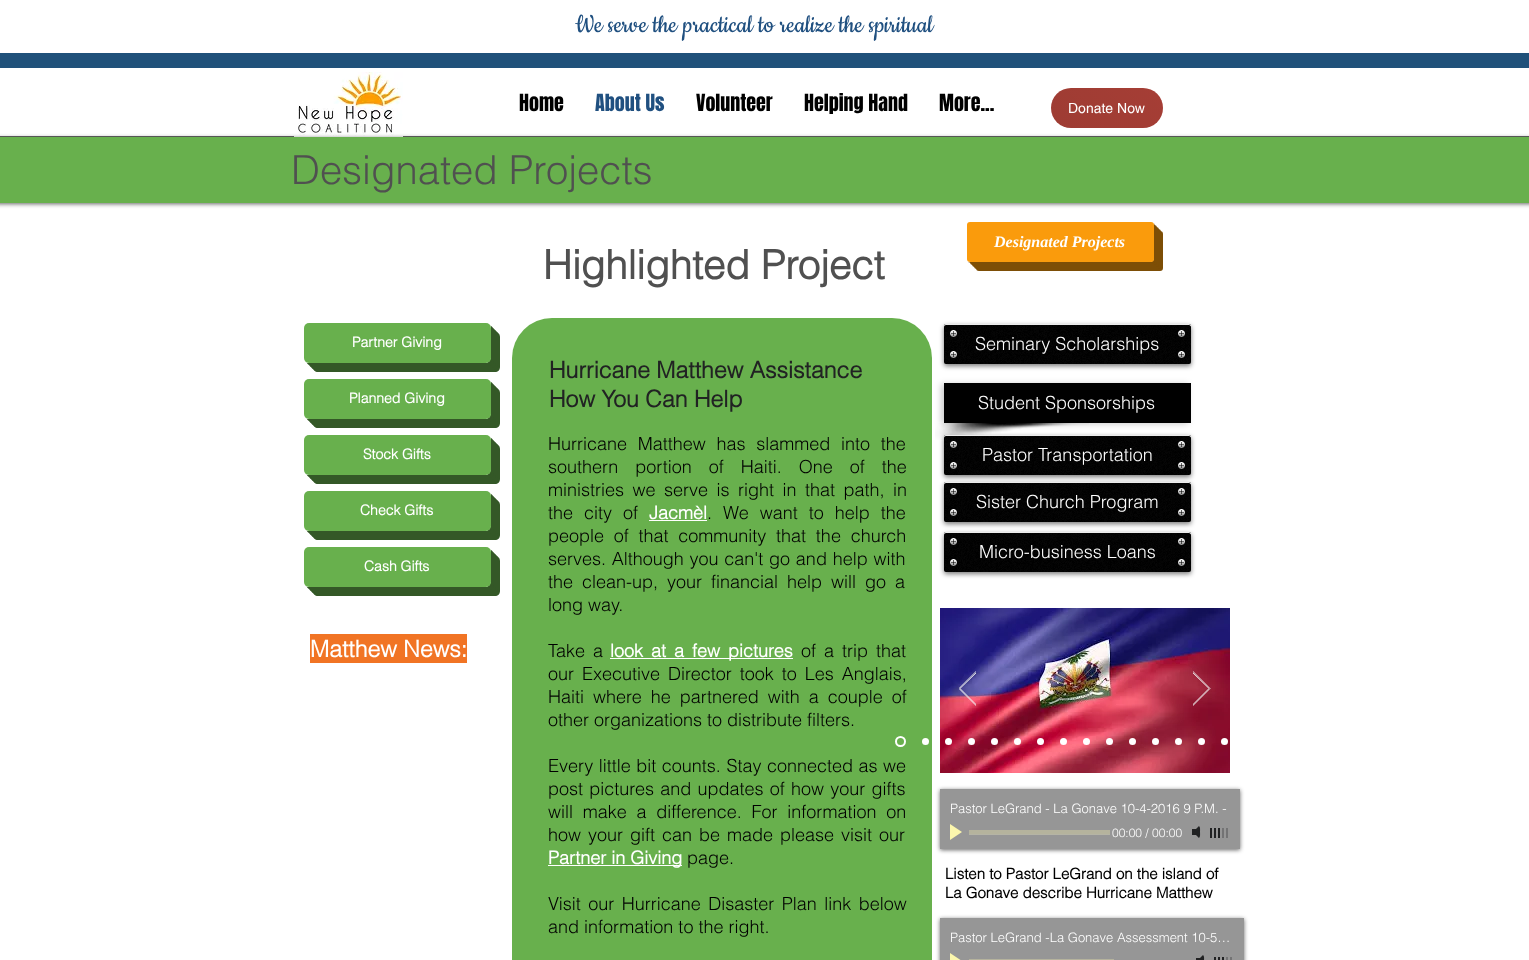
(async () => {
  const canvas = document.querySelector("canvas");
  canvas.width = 1529;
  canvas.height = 960;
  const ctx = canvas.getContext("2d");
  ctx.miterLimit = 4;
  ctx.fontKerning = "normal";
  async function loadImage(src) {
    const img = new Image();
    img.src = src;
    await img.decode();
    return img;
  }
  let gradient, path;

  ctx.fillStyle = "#ffffff";
  ctx.fillRect(0, 0, 1529, 960);
  ctx.fillStyle = "#20517a";
  ctx.fillRect(0, 53, 1529, 15);
  ctx.fillStyle = "#666666";
  ctx.fillRect(0, 136, 1529, 1);
  ctx.drawImage(await loadImage("img/1.png"), 294, 72, 109, 65);
  ctx.fillStyle = "#9e3c33";
  ctx.beginPath();
  ctx.roundRect(1051, 88, 112, 40, 20);
  ctx.fill();
  gradient = ctx.createLinearGradient(1149, 72, 1065, 144);
  gradient.addColorStop(0, "rgba(255, 79, 79, 0.08)");
  gradient.addColorStop(1, "rgba(255, 79, 79, 0)");
  ctx.fillStyle = gradient;
  ctx.beginPath();
  ctx.roundRect(1051, 88, 112, 40, 20);
  ctx.fill();
  ctx.fillStyle = "rgba(0, 0, 0, 0.6)";
  ctx.filter = "blur(2px)";
  ctx.beginPath();
  ctx.roundRect(-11, 138, 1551, 66, 5);
  ctx.fill();
  ctx.filter = "none";
  ctx.fillStyle = "#68b04d";
  ctx.fillRect(0, 137, 1529, 66);
  ctx.fillStyle = "#7d4e06";
  path = new Path2D("M976 262V268C976 270 977 271 979 271H1160C1162 271 1163 270 1163 268V234C1163 232 1162 231 1160 231H1154V259C1154 261 1153 262 1151 262Z");
  ctx.fill(path);
  path = new Path2D("M974 262V266C974 268 975 269 977 269H1158C1160 269 1161 268 1161 266V232C1161 230 1160 229 1158 229H1154V259C1154 261 1153 262 1151 262Z");
  ctx.fill(path);
  path = new Path2D("M972 262V264C972 266 973 267 975 267H1156C1158 267 1159 266 1159 264V230C1159 228 1158 227 1156 227H1154V259C1154 261 1153 262 1151 262Z");
  ctx.fill(path);
  path = new Path2D("M970 262C970 264 971 265 973 265H1154C1156 265 1157 264 1157 262V228C1157 226 1156 225 1154 225V259C1154 261 1153 262 1151 262Z");
  ctx.fill(path);
  path = new Path2D("M968 262C969 262 970 263 971 263H1152C1154 263 1155 262 1155 260V226C1155 225 1154 224 1154 223V225V259C1154 261 1153 262 1151 262H970Z");
  ctx.fill(path);
  ctx.fillStyle = "#fa9b0c";
  ctx.beginPath();
  ctx.roundRect(967, 222, 187, 40, 3);
  ctx.fill();
  ctx.fillStyle = "#345827";
  path = new Path2D("M313 363V367C313 370 315 372 318 372H495C498 372 500 370 500 367V337C500 334 498 332 495 332H491V358C491 361 489 363 486 363Z");
  ctx.fill(path);
  path = new Path2D("M311 363V365C311 368 313 370 316 370H493C496 370 498 368 498 365V335C498 332 496 330 493 330H491V358C491 361 489 363 486 363Z");
  ctx.fill(path);
  path = new Path2D("M309 363C309 366 311 368 314 368H491C494 368 496 366 496 363V333C496 330 494 328 491 328V358C491 361 489 363 486 363Z");
  ctx.fill(path);
  path = new Path2D("M307 363C308 365 310 366 312 366H489C492 366 494 364 494 361V331C494 329 493 327 491 326V348C491 352 493 363 486 363Z");
  ctx.fill(path);
  path = new Path2D("M306 362C307 363 308 364 310 364H487C490 364 492 362 492 359V329C492 327 491 326 490 325C491 326 491 327 491 328V358C491 361 489 363 486 363H309C308 363 307 363 306 362Z");
  ctx.fill(path);
  ctx.fillStyle = "#68b04d";
  ctx.beginPath();
  ctx.roundRect(304, 323, 187, 40, 5);
  ctx.fill();
  ctx.fillStyle = "rgba(0, 0, 0, 0.53)";
  ctx.filter = "blur(2.5px)";
  ctx.beginPath();
  ctx.roundRect(944, 326, 247, 40, 2);
  ctx.fill();
  ctx.filter = "none";
  ctx.fillStyle = "#000000";
  ctx.beginPath();
  ctx.roundRect(944, 324, 247, 40, 2);
  ctx.fill();
  ctx.drawImage(await loadImage("img/2.png"), 944, 324, 247, 40);
  ctx.fillStyle = "rgba(255, 255, 255, 0.92)";
  path = new Path2D("M946 325H1189C1190 325 1191 326 1191 327V325L1189 324H946C944 324 944 326 944 327C944 326 945 325 946 325Z");
  ctx.fill(path);
  ctx.drawImage(await loadImage("img/3.png"), 950, 330, 7, 7);
  ctx.drawImage(await loadImage("img/4.png"), 1178, 330, 7, 7);
  ctx.drawImage(await loadImage("img/5.png"), 950, 351, 7, 7);
  ctx.drawImage(await loadImage("img/6.png"), 1178, 351, 7, 7);
  ctx.fillStyle = "#345827";
  path = new Path2D("M313 419V423C313 426 315 428 318 428H495C498 428 500 426 500 423V393C500 390 498 388 495 388H491V414C491 417 489 419 486 419Z");
  ctx.fill(path);
  path = new Path2D("M311 419V421C311 424 313 426 316 426H493C496 426 498 424 498 421V391C498 388 496 386 493 386H491V414C491 417 489 419 486 419Z");
  ctx.fill(path);
  path = new Path2D("M309 419C309 422 311 424 314 424H491C494 424 496 422 496 419V389C496 386 494 384 491 384V414C491 417 489 419 486 419Z");
  ctx.fill(path);
  path = new Path2D("M307 419C308 421 310 422 312 422H489C492 422 494 420 494 417V387C494 385 493 383 491 382V404C491 408 493 419 486 419Z");
  ctx.fill(path);
  path = new Path2D("M306 418C307 419 308 420 310 420H487C490 420 492 418 492 415V385C492 383 491 382 490 381C491 382 491 383 491 384V414C491 417 489 419 486 419H309C308 419 307 419 306 418Z");
  ctx.fill(path);
  ctx.fillStyle = "#68b04d";
  ctx.beginPath();
  ctx.roundRect(304, 379, 187, 40, 5);
  ctx.fill();
  ctx.beginPath();
  ctx.roundRect(512, 318, 420, 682, 40);
  ctx.fill();
  for (const [x, y, w, h, color] of [
    [649, 520, 58, 1, "#ffffff"],
    [610, 658, 183, 1, "#ffffff"],
    [548, 865, 134, 1, "#ffffff"],
  ]) {
    ctx.fillStyle = color;
    ctx.fillRect(x, y, w, h);
  }
  ctx.drawImage(await loadImage("img/7.png"), 935, 423, 154, 17);
  ctx.fillStyle = "rgba(0, 0, 0, 0.2)";
  ctx.filter = "blur(3px)";
  ctx.beginPath();
  ctx.rect(941, 384, 247, 40);
  ctx.fill();
  ctx.filter = "none";
  ctx.fillStyle = "#000000";
  ctx.fillRect(944, 383, 247, 40);
  ctx.fillStyle = "#345827";
  path = new Path2D("M313 475V479C313 482 315 484 318 484H495C498 484 500 482 500 479V449C500 446 498 444 495 444H491V470C491 473 489 475 486 475Z");
  ctx.fill(path);
  path = new Path2D("M311 475V477C311 480 313 482 316 482H493C496 482 498 480 498 477V447C498 444 496 442 493 442H491V470C491 473 489 475 486 475Z");
  ctx.fill(path);
  path = new Path2D("M309 475C309 478 311 480 314 480H491C494 480 496 478 496 475V445C496 442 494 440 491 440V470C491 473 489 475 486 475Z");
  ctx.fill(path);
  path = new Path2D("M307 475C308 477 310 478 312 478H489C492 478 494 476 494 473V443C494 441 493 439 491 438V460C491 464 493 475 486 475Z");
  ctx.fill(path);
  path = new Path2D("M306 474C307 475 308 476 310 476H487C490 476 492 474 492 471V441C492 439 491 438 490 437C491 438 491 439 491 440V470C491 473 489 475 486 475H309C308 475 307 475 306 474Z");
  ctx.fill(path);
  ctx.fillStyle = "#68b04d";
  ctx.beginPath();
  ctx.roundRect(304, 435, 187, 40, 5);
  ctx.fill();
  ctx.fillStyle = "rgba(0, 0, 0, 0.53)";
  ctx.filter = "blur(2.5px)";
  ctx.beginPath();
  ctx.roundRect(944, 437, 247, 40, 2);
  ctx.fill();
  ctx.filter = "none";
  ctx.fillStyle = "#000000";
  ctx.beginPath();
  ctx.roundRect(944, 435, 247, 40, 2);
  ctx.fill();
  ctx.drawImage(await loadImage("img/8.png"), 944, 435, 247, 40);
  ctx.fillStyle = "rgba(255, 255, 255, 0.92)";
  path = new Path2D("M946 436H1189C1190 436 1191 437 1191 438V436L1189 435H946C944 435 944 437 944 438C944 437 945 436 946 436Z");
  ctx.fill(path);
  ctx.drawImage(await loadImage("img/3.png"), 950, 441, 7, 7);
  ctx.drawImage(await loadImage("img/4.png"), 1178, 441, 7, 7);
  ctx.drawImage(await loadImage("img/5.png"), 950, 462, 7, 7);
  ctx.drawImage(await loadImage("img/6.png"), 1178, 462, 7, 7);
  ctx.fillStyle = "#345827";
  path = new Path2D("M313 531V535C313 538 315 540 318 540H495C498 540 500 538 500 535V505C500 502 498 500 495 500H491V526C491 529 489 531 486 531Z");
  ctx.fill(path);
  path = new Path2D("M311 531V533C311 536 313 538 316 538H493C496 538 498 536 498 533V503C498 500 496 498 493 498H491V526C491 529 489 531 486 531Z");
  ctx.fill(path);
  path = new Path2D("M309 531C309 534 311 536 314 536H491C494 536 496 534 496 531V501C496 498 494 496 491 496V526C491 529 489 531 486 531Z");
  ctx.fill(path);
  path = new Path2D("M307 531C308 533 310 534 312 534H489C492 534 494 532 494 529V499C494 497 493 495 491 494V516C491 520 493 531 486 531Z");
  ctx.fill(path);
  path = new Path2D("M306 530C307 531 308 532 310 532H487C490 532 492 530 492 527V497C492 495 491 494 490 493C491 494 491 495 491 496V526C491 529 489 531 486 531H309C308 531 307 531 306 530Z");
  ctx.fill(path);
  ctx.fillStyle = "#68b04d";
  ctx.beginPath();
  ctx.roundRect(304, 491, 187, 40, 5);
  ctx.fill();
  ctx.fillStyle = "rgba(0, 0, 0, 0.53)";
  ctx.filter = "blur(2.5px)";
  ctx.beginPath();
  ctx.roundRect(944, 484, 247, 40, 2);
  ctx.fill();
  ctx.filter = "none";
  ctx.fillStyle = "#000000";
  ctx.beginPath();
  ctx.roundRect(944, 482, 247, 40, 2);
  ctx.fill();
  ctx.drawImage(await loadImage("img/2.png"), 944, 482, 247, 40);
  ctx.fillStyle = "rgba(255, 255, 255, 0.92)";
  path = new Path2D("M946 483H1189C1190 483 1191 484 1191 485V483L1189 482H946C944 482 944 484 944 485C944 484 945 483 946 483Z");
  ctx.fill(path);
  ctx.drawImage(await loadImage("img/3.png"), 950, 488, 7, 7);
  ctx.drawImage(await loadImage("img/4.png"), 1178, 488, 7, 7);
  ctx.drawImage(await loadImage("img/5.png"), 950, 509, 7, 7);
  ctx.drawImage(await loadImage("img/6.png"), 1178, 509, 7, 7);
  ctx.fillStyle = "rgba(0, 0, 0, 0.53)";
  ctx.filter = "blur(2.5px)";
  ctx.beginPath();
  ctx.roundRect(944, 534, 247, 40, 2);
  ctx.fill();
  ctx.filter = "none";
  ctx.fillStyle = "#000000";
  ctx.beginPath();
  ctx.roundRect(944, 532, 247, 40, 2);
  ctx.fill();
  ctx.drawImage(await loadImage("img/2.png"), 944, 532, 247, 40);
  ctx.fillStyle = "rgba(255, 255, 255, 0.92)";
  path = new Path2D("M946 533H1189C1190 533 1191 534 1191 535V533L1189 532H946C944 532 944 534 944 535C944 534 945 533 946 533Z");
  ctx.fill(path);
  ctx.drawImage(await loadImage("img/3.png"), 950, 538, 7, 7);
  ctx.drawImage(await loadImage("img/4.png"), 1178, 538, 7, 7);
  ctx.drawImage(await loadImage("img/5.png"), 950, 559, 7, 7);
  ctx.drawImage(await loadImage("img/6.png"), 1178, 559, 7, 7);
  ctx.fillStyle = "#345827";
  path = new Path2D("M313 587V591C313 594 315 596 318 596H495C498 596 500 594 500 591V561C500 558 498 556 495 556H491V582C491 585 489 587 486 587Z");
  ctx.fill(path);
  path = new Path2D("M311 587V589C311 592 313 594 316 594H493C496 594 498 592 498 589V559C498 556 496 554 493 554H491V582C491 585 489 587 486 587Z");
  ctx.fill(path);
  path = new Path2D("M309 587C309 590 311 592 314 592H491C494 592 496 590 496 587V557C496 554 494 552 491 552V582C491 585 489 587 486 587Z");
  ctx.fill(path);
  path = new Path2D("M307 587C308 589 310 590 312 590H489C492 590 494 588 494 585V555C494 553 493 551 491 550V572C491 576 493 587 486 587Z");
  ctx.fill(path);
  path = new Path2D("M306 586C307 587 308 588 310 588H487C490 588 492 586 492 583V553C492 551 491 550 490 549C491 550 491 551 491 552V582C491 585 489 587 486 587H309C308 587 307 587 306 586Z");
  ctx.fill(path);
  ctx.fillStyle = "#68b04d";
  ctx.beginPath();
  ctx.roundRect(304, 547, 187, 40, 5);
  ctx.fill();
  ctx.fillStyle = "#f17424";
  ctx.fillRect(310, 634, 157, 29);
  ctx.drawImage(await loadImage("img/9.png"), 940, 608, 290, 165);
  ctx.save();
  ctx.beginPath();
  ctx.rect(959, 671, 17, 36);
  ctx.clip();
  path = new Path2D("M976.5 706L959 688.5L976.5 671L977 672L960 688.5L977 705.5Z");
  ctx.strokeStyle = "#eeeeee";
  ctx.lineWidth = 0.9;
  ctx.stroke(path);
  ctx.restore();
  ctx.save();
  ctx.beginPath();
  ctx.rect(1193, 671, 18, 36);
  ctx.clip();
  path = new Path2D("M1192.5 706L1210 688.5L1192.5 671L1192 672L1209 688.5L1192 705.5Z");
  ctx.strokeStyle = "#eeeeee";
  ctx.lineWidth = 0.9;
  ctx.stroke(path);
  ctx.restore();
  ctx.beginPath();
  ctx.arc(900.5, 741.5, 4.5, 0, Math.PI * 2);
  ctx.strokeStyle = "#ffffff";
  ctx.lineWidth = 2;
  ctx.stroke();
  ctx.fillStyle = "#ffffff";
  ctx.beginPath();
  ctx.arc(925.5, 741.5, 3.5, 0, Math.PI * 2);
  ctx.fill();
  ctx.beginPath();
  ctx.arc(948.5, 741.5, 3.5, 0, Math.PI * 2);
  ctx.fill();
  ctx.beginPath();
  ctx.arc(971.5, 741.5, 3.5, 0, Math.PI * 2);
  ctx.fill();
  ctx.beginPath();
  ctx.arc(994.5, 741.5, 3.5, 0, Math.PI * 2);
  ctx.fill();
  ctx.beginPath();
  ctx.arc(1017.5, 741.5, 3.5, 0, Math.PI * 2);
  ctx.fill();
  ctx.beginPath();
  ctx.arc(1040.5, 741.5, 3.5, 0, Math.PI * 2);
  ctx.fill();
  ctx.beginPath();
  ctx.arc(1063.5, 741.5, 3.5, 0, Math.PI * 2);
  ctx.fill();
  ctx.beginPath();
  ctx.arc(1086.5, 741.5, 3.5, 0, Math.PI * 2);
  ctx.fill();
  ctx.beginPath();
  ctx.arc(1109.5, 741.5, 3.5, 0, Math.PI * 2);
  ctx.fill();
  ctx.beginPath();
  ctx.arc(1132.5, 741.5, 3.5, 0, Math.PI * 2);
  ctx.fill();
  ctx.beginPath();
  ctx.arc(1155.5, 741.5, 3.5, 0, Math.PI * 2);
  ctx.fill();
  ctx.beginPath();
  ctx.arc(1178.5, 741.5, 3.5, 0, Math.PI * 2);
  ctx.fill();
  ctx.beginPath();
  ctx.arc(1201.5, 741.5, 3.5, 0, Math.PI * 2);
  ctx.fill();
  ctx.beginPath();
  ctx.arc(1224.5, 741.5, 3.5, 0, Math.PI * 2);
  ctx.fill();
  ctx.fillStyle = "rgba(0, 0, 0, 0.6)";
  ctx.filter = "blur(2px)";
  ctx.beginPath();
  ctx.rect(940, 790, 300, 60);
  ctx.fill();
  ctx.filter = "none";
  ctx.fillStyle = "#969696";
  ctx.fillRect(940, 789, 300, 60);
  ctx.fillStyle = "#fcf7ad";
  path = new Path2D("M950 840V824L962 832Z");
  ctx.fill(path);
  ctx.fillStyle = "#b5b39d";
  ctx.fillRect(969, 830, 141, 4);
  ctx.fillStyle = "#b5b4a5";
  ctx.fillRect(969, 834, 141, 1);
  ctx.fillStyle = "#212223";
  path = new Path2D("M1193 832L1199 838C1200.5 836.5 1200 834 1200 832C1200 830 1200.5 827.5 1199 826Z");
  ctx.fill(path);
  for (const [x, y, w, h, color] of [
    [1192, 829, 4, 6, "#212223"],
    [1210, 828, 2, 10, "#212223"],
    [1214, 828, 2, 10, "#212223"],
    [1218, 828, 2, 10, "#212223"],
    [1222, 828, 2, 10, "#737374"],
    [1226, 828, 2, 10, "#737374"],
  ]) {
    ctx.fillStyle = color;
    ctx.fillRect(x, y, w, h);
  }
  ctx.fillStyle = "rgba(0, 0, 0, 0.6)";
  ctx.filter = "blur(2px)";
  ctx.beginPath();
  ctx.rect(940, 919, 304, 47);
  ctx.fill();
  ctx.filter = "none";
  ctx.fillStyle = "#969696";
  ctx.fillRect(940, 918, 304, 42);
  ctx.fillStyle = "#fcf7ad";
  path = new Path2D("M950 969V953L962 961Z");
  ctx.fill(path);
  ctx.fillStyle = "#b5b39d";
  ctx.fillRect(969, 959, 145, 1);
  ctx.fillStyle = "#212223";
  path = new Path2D("M1197 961L1203 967C1204.5 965.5 1204 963 1204 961C1204 959 1204.5 956.5 1203 955Z");
  ctx.fill(path);
  for (const [x, y, w, h, color] of [
    [1196, 958, 4, 2, "#212223"],
    [1214, 957, 2, 3, "#212223"],
    [1218, 957, 2, 3, "#212223"],
    [1222, 957, 2, 3, "#212223"],
    [1226, 957, 2, 3, "#737374"],
    [1230, 957, 2, 3, "#737374"],
  ]) {
    ctx.fillStyle = color;
    ctx.fillRect(x, y, w, h);
  }
  ctx.font = "28px Cookie";
  ctx.fillStyle = "#205080";
  ctx.fillText("We serve the practical to realize the spiritual", 575, 32);
  ctx.font = "20px Anton";
  ctx.fillStyle = "#000000";
  ctx.fillText("Home", 519, 111);
  ctx.fillStyle = "#205080";
  ctx.fillText("About Us", 595, 111);
  ctx.fillStyle = "#000000";
  for (const [text, x, y] of [
    ["Volunteer", 696, 111],
    ["Helping Hand", 804, 111],
    ["More...", 939, 111],
  ]) {
    ctx.fillText(text, x, y);
  }
  ctx.font = "14px helvetica";
  ctx.fillStyle = "#ffffff";
  ctx.fillText("Donate Now", 1068, 113);
  ctx.font = "300 40px helvetica";
  ctx.fillStyle = "#505050";
  ctx.fillText("Designated Projects", 291, 184);
  ctx.font = "italic bold 16px Liberation Serif";
  ctx.fillStyle = "#ffffff";
  ctx.fillText("Designated Projects", 994, 247);
  ctx.font = "bold 40px helvetica";
  ctx.fillStyle = "#505050";
  ctx.fillText("Highlighted Project", 543, 279);
  ctx.font = "bold 14px helvetica";
  ctx.fillStyle = "#ffffff";
  ctx.fillText("Partner Giving", 352, 347);
  ctx.font = "300 18px helvetica";
  ctx.fillText("Seminary Scholarships", 975, 350);
  ctx.font = "bold 14px helvetica";
  ctx.fillText("Planned Giving", 349, 403);
  ctx.font = "bold 23px helvetica";
  ctx.fillStyle = "#212223";
  ctx.fillText("Hurricane Matthew Assistance", 549, 378);
  ctx.fillText("How You Can Help", 549, 407);
  ctx.wordSpacing = "5.75px";
  ctx.font = "300 18px helvetica";
  ctx.fillStyle = "#000000";
  ctx.fillText("Hurricane Matthew has slammed into the", 548, 450);
  ctx.wordSpacing = "12px";
  ctx.fillText("southern portion of Haiti. One of the", 548, 473);
  ctx.wordSpacing = "3.5px";
  ctx.fillText("ministries we serve is right in that path, in", 548, 496);
  ctx.wordSpacing = "6px";
  ctx.fillText("the city of", 548, 519);
  ctx.wordSpacing = "0px";
  ctx.font = "bold 18px helvetica";
  ctx.fillStyle = "#ffffff";
  ctx.fillText("Jacmèl", 649, 519);
  ctx.wordSpacing = "6px";
  ctx.font = "300 18px helvetica";
  ctx.fillStyle = "#000000";
  ctx.fillText(". We want to help the", 707, 519);
  ctx.wordSpacing = "4.75px";
  ctx.fillText("people of that community that the church", 548, 542);
  ctx.wordSpacing = "0.75px";
  ctx.fillText("serves. Although you can't go and help with", 548, 565);
  ctx.wordSpacing = "4px";
  ctx.fillText("the clean-up, your financial help will go a", 548, 588);
  ctx.wordSpacing = "0px";
  ctx.fillText("long way.", 548, 611);
  ctx.wordSpacing = "3px";
  ctx.fillText("Take a", 548, 657);
  ctx.font = "bold 18px helvetica";
  ctx.fillStyle = "#ffffff";
  ctx.fillText("look at a few pictures", 610, 657);
  ctx.font = "300 18px helvetica";
  ctx.fillStyle = "#000000";
  ctx.fillText("of a trip that", 801, 657);
  ctx.fillText("our Executive Director took to Les Anglais,", 548, 680);
  ctx.wordSpacing = "4px";
  ctx.fillText("Haiti where he partnered with a couple of", 548, 703);
  ctx.wordSpacing = "0px";
  ctx.fillText("other organizations to distribute filters.", 548, 726);
  ctx.wordSpacing = "0.5px";
  ctx.fillText("Every little bit counts. Stay connected as we", 548, 772);
  ctx.wordSpacing = "1.25px";
  ctx.fillText("post pictures and updates of how your gifts", 548, 795);
  ctx.wordSpacing = "4.75px";
  ctx.fillText("will make a difference. For information on", 548, 818);
  ctx.wordSpacing = "2px";
  ctx.fillText("how your gift can be made please visit our", 548, 841);
  ctx.wordSpacing = "0px";
  ctx.font = "bold 18px helvetica";
  ctx.fillStyle = "#ffffff";
  ctx.fillText("Partner in Giving", 548, 864);
  ctx.font = "300 18px helvetica";
  ctx.fillStyle = "#000000";
  ctx.fillText("page.", 687, 864);
  ctx.wordSpacing = "2.5px";
  ctx.fillText("Visit our Hurricane Disaster Plan link below", 548, 910);
  ctx.wordSpacing = "0px";
  ctx.fillText("and information to the right.", 548, 933);
  ctx.fillStyle = "#ffffff";
  ctx.fillText("Student Sponsorships", 978, 409);
  ctx.font = "bold 14px helvetica";
  ctx.fillText("Stock Gifts", 363, 459);
  ctx.font = "300 18px helvetica";
  ctx.fillText("Pastor Transportation", 982, 461);
  ctx.font = "bold 14px helvetica";
  ctx.fillText("Check Gifts", 360, 515);
  ctx.font = "300 18px helvetica";
  ctx.fillText("Sister Church Program", 976, 508);
  ctx.fillText("Micro-business Loans", 979, 558);
  ctx.font = "bold 14px helvetica";
  ctx.fillText("Cash Gifts", 364, 571);
  ctx.font = "bold 23px helvetica";
  ctx.fillText("Matthew News:", 310, 657);
  ctx.font = "300 13px helvetica";
  ctx.fillText("Pastor LeGrand - La Gonave 10-4-2016 9 P.M. -", 950, 813);
  ctx.font = "300 12px helvetica";
  ctx.fillText("00:00 / 00:00", 1112, 837);
  ctx.font = "bold 15px helvetica";
  ctx.fillStyle = "#000000";
  ctx.fillText("Listen to Pastor LeGrand on the island of", 945, 879);
  ctx.fillText("La Gonave describe Hurricane Matthew", 945, 898);
  ctx.font = "300 13px helvetica";
  ctx.fillStyle = "#ffffff";
  ctx.fillText("Pastor LeGrand -La Gonave Assessment 10-5…", 950, 942);
})();
